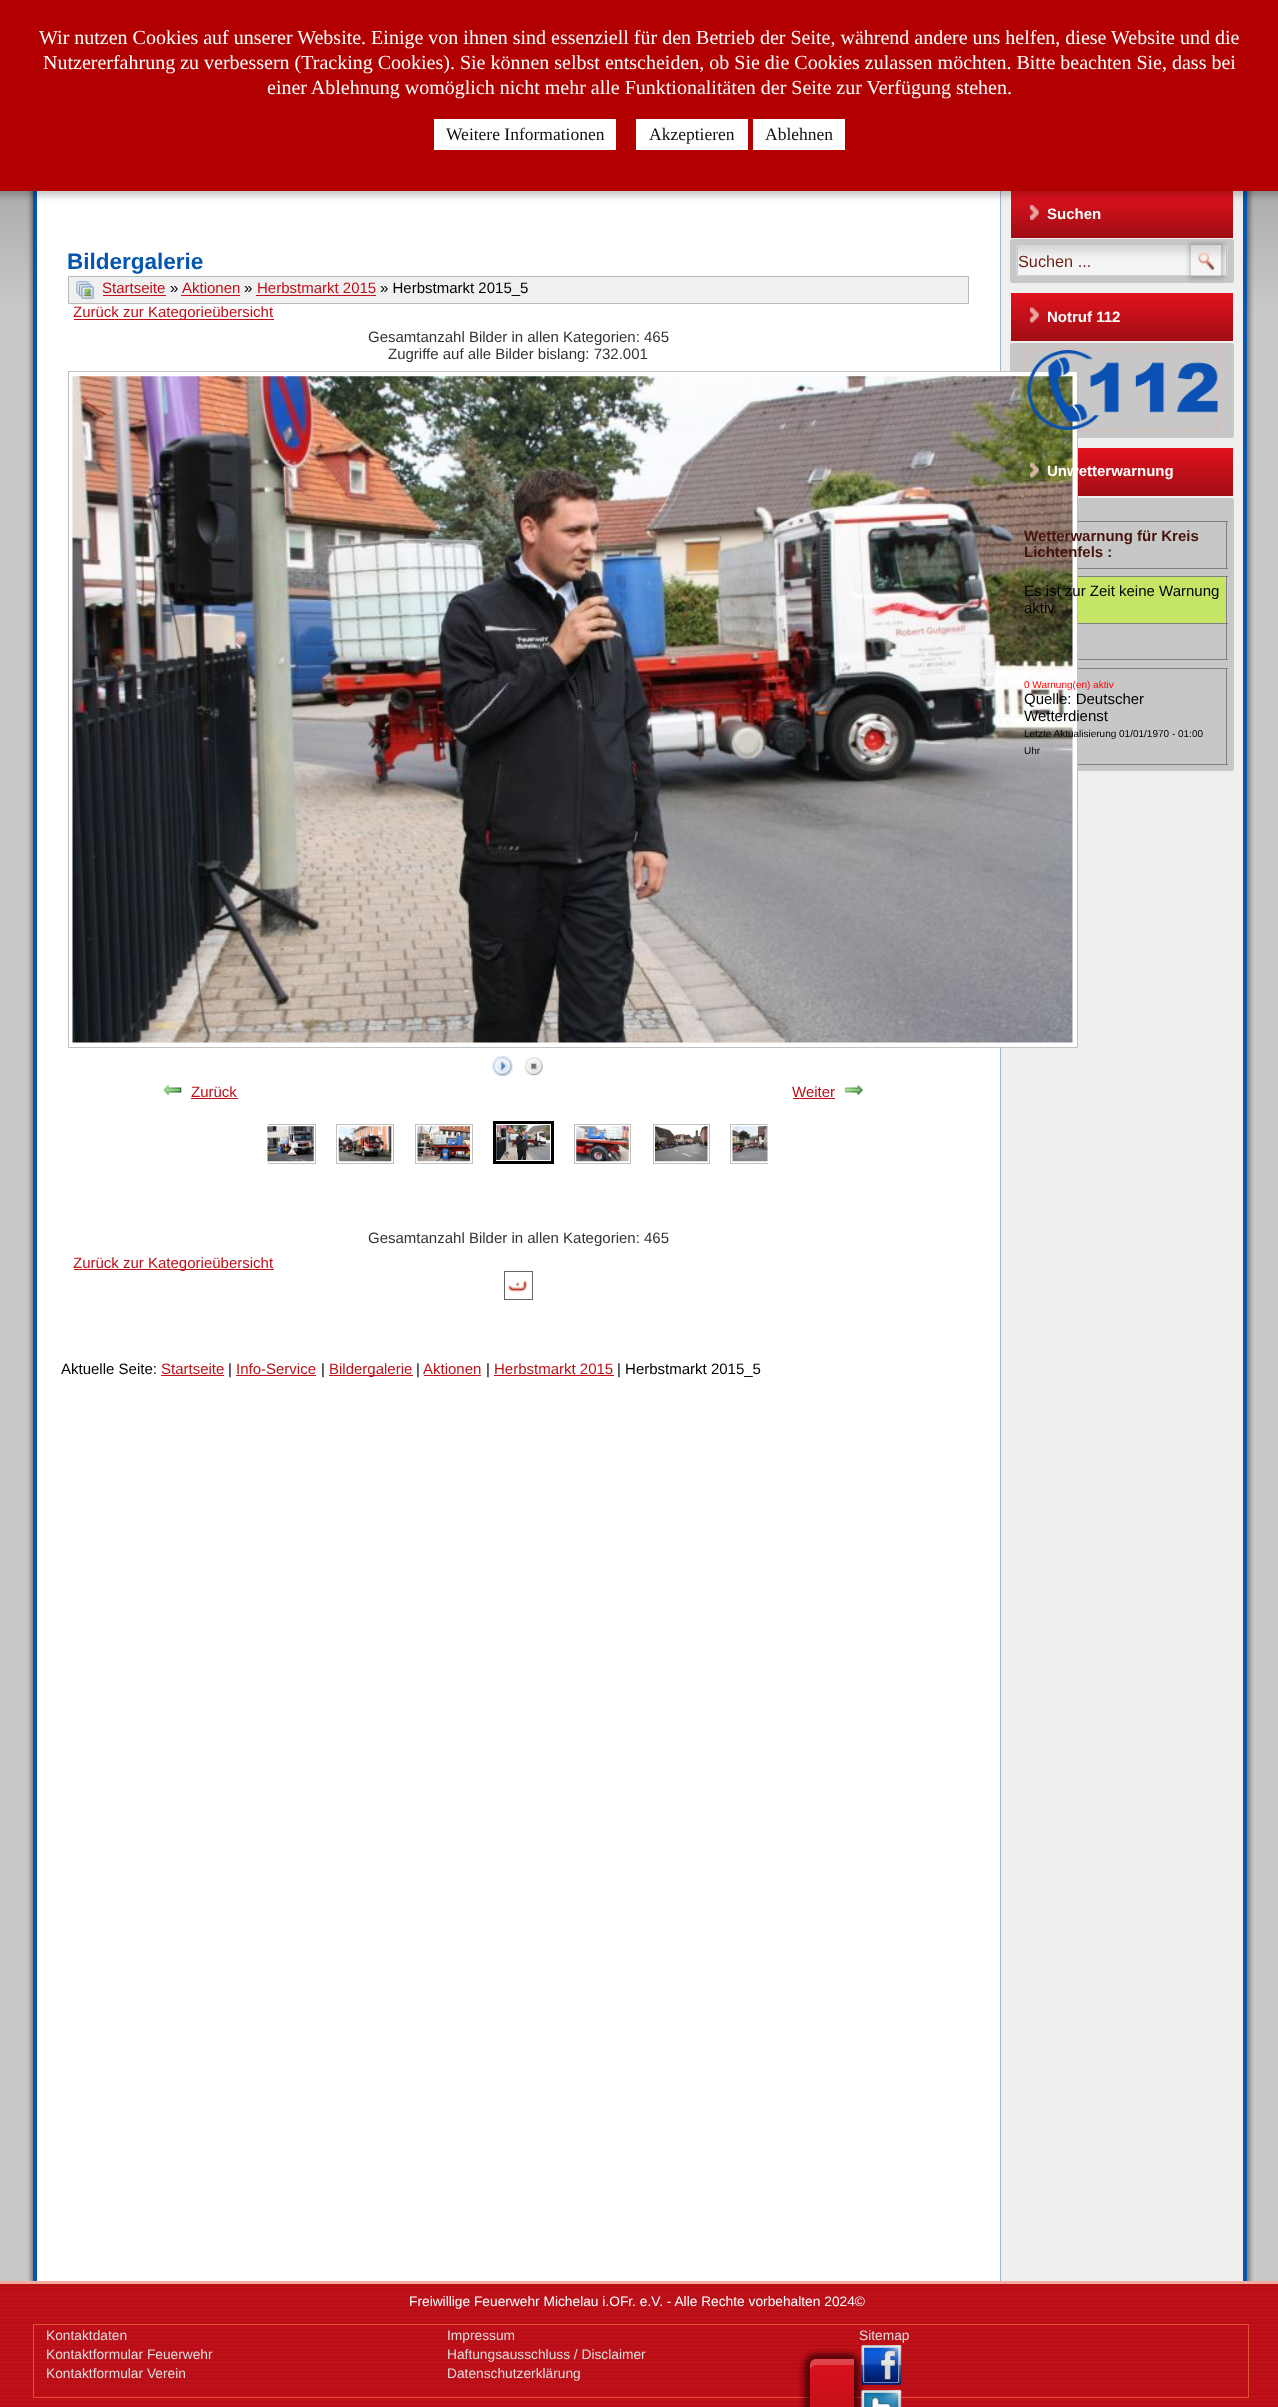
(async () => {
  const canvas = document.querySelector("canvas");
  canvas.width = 1278;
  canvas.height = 2407;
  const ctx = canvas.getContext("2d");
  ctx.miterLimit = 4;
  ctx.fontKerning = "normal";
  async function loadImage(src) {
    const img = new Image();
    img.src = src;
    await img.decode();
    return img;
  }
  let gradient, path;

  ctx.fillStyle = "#ffffff";
  ctx.fillRect(0, 0, 1278, 2407);
  gradient = ctx.createLinearGradient(639, 0, 639, 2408);
  gradient.addColorStop(0, "#808080");
  gradient.addColorStop(0.13, "#c9c9c9");
  ctx.fillStyle = gradient;
  ctx.fillRect(0, 191, 1278, 2090);
  ctx.fillStyle = "rgba(0, 0, 0, 0.4)";
  ctx.filter = "blur(2px)";
  ctx.beginPath();
  ctx.rect(31, 11, 1219, 2274);
  ctx.fill();
  ctx.filter = "none";
  for (const [x, y, w, h, color] of [
    [37, 191, 963, 2090, "#ffffff"],
    [1243, 191, 4, 2090, "#0456af"],
    [33, 191, 4, 2090, "#0456af"],
    [1001, 191, 242, 2090, "#efefef"],
    [1000, 191, 1, 2090, "#a3b4c8"],
  ]) {
    ctx.fillStyle = color;
    ctx.fillRect(x, y, w, h);
  }
  gradient = ctx.createLinearGradient(1122, 190, 1122, 238);
  gradient.addColorStop(0, "#e2121d");
  gradient.addColorStop(1, "#a00d14");
  ctx.fillStyle = gradient;
  ctx.fillRect(1011, 191, 222, 47);
  ctx.drawImage(await loadImage("img/15.png"), 1030, 205, 9, 15);
  ctx.fillStyle = "rgba(0, 0, 0, 0.21)";
  ctx.filter = "blur(3px)";
  ctx.beginPath();
  ctx.rect(-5, -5, 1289, 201);
  ctx.fill();
  ctx.filter = "none";
  for (const [x, y, w, h, color] of [
    [0, 0, 1278, 191, "#b20000"],
    [434, 119, 182, 31, "#ffffff"],
    [636, 119, 112, 31, "#ffffff"],
    [753, 119, 92, 31, "#ffffff"],
  ]) {
    ctx.fillStyle = color;
    ctx.fillRect(x, y, w, h);
  }
  ctx.fillStyle = "#f0f0f0";
  ctx.beginPath();
  ctx.rect(68.5, 276.5, 900, 27);
  ctx.fill();
  ctx.strokeStyle = "#bbbbbb";
  ctx.stroke();
  ctx.drawImage(await loadImage("img/1.png"), 76, 281, 18, 18);
  for (const [x, y, w, h, color] of [
    [103, 295, 63, 1, "#bf1019"],
    [181, 295, 59, 1, "#bf1019"],
    [256, 295, 120, 1, "#bf1019"],
    [74, 319, 200, 1, "#bf1019"],
  ]) {
    ctx.fillStyle = color;
    ctx.fillRect(x, y, w, h);
  }
  ctx.fillStyle = "#c7c7c7";
  ctx.beginPath();
  ctx.roundRect(1010, 343, 224, 95, 2.5);
  ctx.fill();
  path = new Path2D("M1026 349.5H1219");
  ctx.strokeStyle = "#f2ada1";
  ctx.lineWidth = 1.2;
  ctx.setLineDash([1.25, 1.25]);
  ctx.stroke(path);
  path = new Path2D("M1218 349V431");
  ctx.stroke(path);
  path = new Path2D("M1026 430.5H1219");
  ctx.stroke(path);
  path = new Path2D("M1027 349V431");
  ctx.stroke(path);
  ctx.beginPath();
  ctx.roundRect(1010, 498, 224, 273, 2.5);
  ctx.fill();
  ctx.fillStyle = "#ffffff";
  ctx.fillRect(1000, 372, 77, 675);
  ctx.strokeStyle = "#c0c0c0";
  ctx.lineWidth = 1;
  ctx.setLineDash([]);
  ctx.strokeRect(68.5, 371.5, 1009, 676);
  ctx.drawImage(await loadImage("img/2.png"), 72, 376, 1001, 667);
  ctx.drawImage(await loadImage("img/3.png"), 492, 1056, 21, 21);
  ctx.drawImage(await loadImage("img/4.png"), 525, 1057, 18, 19);
  ctx.drawImage(await loadImage("img/5.png"), 163, 1084, 19, 12);
  ctx.fillStyle = "#bf1019";
  ctx.fillRect(191, 1098, 47, 1);
  ctx.fillRect(793, 1098, 42, 1);
  ctx.drawImage(await loadImage("img/6.png"), 844, 1084, 19, 12);
  ctx.save();
  ctx.beginPath();
  ctx.rect(268, 1124, 48, 40);
  ctx.clip();
  ctx.strokeRect(258.5, 1124.5, 57, 39);
  ctx.restore();
  ctx.drawImage(await loadImage("img/7.png"), 267, 1126, 47, 36);
  ctx.strokeRect(336.5, 1124.5, 57, 39);
  ctx.drawImage(await loadImage("img/8.png"), 338, 1126, 54, 36);
  ctx.strokeRect(415.5, 1124.5, 57, 39);
  ctx.drawImage(await loadImage("img/9.png"), 417, 1126, 53, 36);
  ctx.strokeStyle = "#000000";
  ctx.lineWidth = 3;
  ctx.strokeRect(494.5, 1122.5, 58, 40);
  ctx.drawImage(await loadImage("img/10.png"), 496, 1125, 54, 35);
  ctx.strokeStyle = "#c0c0c0";
  ctx.lineWidth = 1;
  ctx.strokeRect(574.5, 1124.5, 56, 39);
  ctx.drawImage(await loadImage("img/11.png"), 576, 1126, 53, 36);
  ctx.strokeRect(653.5, 1124.5, 56, 39);
  ctx.drawImage(await loadImage("img/12.png"), 655, 1126, 53, 36);
  ctx.save();
  ctx.beginPath();
  ctx.rect(714, 1124, 54, 40);
  ctx.clip();
  ctx.strokeRect(730.5, 1124.5, 58, 39);
  ctx.restore();
  ctx.drawImage(await loadImage("img/13.png"), 732, 1126, 36, 36);
  ctx.fillRect(74, 1269, 200, 1);
  ctx.strokeStyle = "#666666";
  ctx.strokeRect(504.5, 1271.5, 28, 28);
  ctx.drawImage(await loadImage("img/14.png"), 508, 1281, 20, 11);
  for (const [x, y, w, h, color] of [
    [161, 1375, 63, 1, "#bf1019"],
    [236, 1375, 80, 1, "#bf1019"],
    [329, 1375, 84, 1, "#bf1019"],
    [424, 1375, 57, 1, "#bf1019"],
    [494, 1375, 120, 1, "#bf1019"],
  ]) {
    ctx.fillStyle = color;
    ctx.fillRect(x, y, w, h);
  }
  ctx.fillStyle = "#c7c7c7";
  ctx.beginPath();
  ctx.roundRect(1010, 239, 224, 44, 2.5);
  ctx.fill();
  gradient = ctx.createLinearGradient(1122, 246, 1122, 275);
  gradient.addColorStop(0, "#d6d6d6");
  gradient.addColorStop(0.4, "#f2f2f2");
  gradient.addColorStop(0.5, "#f5f5f5");
  gradient.addColorStop(1, "#f5f5f5");
  ctx.fillStyle = gradient;
  ctx.fillRect(1018, 246, 208, 29);
  ctx.strokeStyle = "#ccd6e0";
  ctx.strokeRect(1016.5, 245.5, 211, 30);
  ctx.save();
  path = new Path2D("M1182 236H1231V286H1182ZM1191 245H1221V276H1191Z");
  ctx.clip(path, "evenodd");
  ctx.fillStyle = "rgba(0, 0, 0, 0.2)";
  ctx.filter = "blur(2px)";
  ctx.beginPath();
  ctx.rect(1189, 243, 35, 36);
  ctx.fill();
  ctx.filter = "none";
  ctx.restore();
  ctx.drawImage(await loadImage("img/16.png"), 1197, 252, 18, 19);
  gradient = ctx.createLinearGradient(1122, 293, 1122, 341);
  gradient.addColorStop(0, "#e2121d");
  gradient.addColorStop(1, "#a00d14");
  ctx.fillStyle = gradient;
  ctx.fillRect(1011, 293, 222, 48);
  ctx.drawImage(await loadImage("img/17.png"), 1030, 307, 9, 16);
  ctx.drawImage(await loadImage("img/18.png"), 1027, 350, 191, 80);
  gradient = ctx.createLinearGradient(1122, 448, 1122, 496);
  gradient.addColorStop(0, "#e2121d");
  gradient.addColorStop(1, "#a00d14");
  ctx.fillStyle = gradient;
  ctx.fillRect(1078, 448, 155, 48);
  ctx.drawImage(await loadImage("img/19.png"), 1030, 462, 9, 16);
  for (const [x, y, w, h, color] of [
    [1078, 521, 150, 1, "#808080"],
    [1226, 521, 1, 48, "#808080"],
    [1078, 568, 150, 1, "#808080"],
    [1078, 577, 150, 46, "#c5e566"],
    [1078, 576, 150, 1, "#808080"],
    [1078, 623, 150, 1, "#808080"],
    [1226, 623, 1, 37, "#808080"],
    [1226, 576, 1, 48, "#808080"],
    [1078, 659, 150, 1, "#808080"],
    [1078, 668, 150, 1, "#808080"],
    [1226, 668, 1, 97, "#808080"],
    [1078, 764, 150, 1, "#808080"],
    [0, 2284, 1278, 123, "#bf1019"],
  ]) {
    ctx.fillStyle = color;
    ctx.fillRect(x, y, w, h);
  }
  ctx.drawImage(await loadImage("img/20.png"), 0, 2284, 1278, 122);
  ctx.fillStyle = "#f2ada1";
  ctx.fillRect(0, 2281, 1278, 3);
  ctx.strokeStyle = "#e25036";
  ctx.strokeRect(33.5, 2324.5, 1215, 73);
  ctx.fillStyle = "rgba(0, 0, 0, 0.2)";
  ctx.filter = "blur(5.5px)";
  ctx.beginPath();
  ctx.roundRect(810, 2365, 44, 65, 6);
  ctx.fill();
  ctx.filter = "none";
  ctx.fillStyle = "rgba(0, 0, 0, 0.1)";
  ctx.filter = "blur(2.5px)";
  ctx.beginPath();
  ctx.roundRect(804, 2353, 56, 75, 13);
  ctx.fill();
  ctx.filter = "none";
  ctx.fillStyle = "rgba(0, 0, 0, 0.2)";
  ctx.filter = "blur(2.5px)";
  ctx.beginPath();
  ctx.roundRect(805, 2354, 54, 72, 11);
  ctx.fill();
  ctx.filter = "none";
  ctx.filter = "blur(5.5px)";
  ctx.beginPath();
  ctx.roundRect(810, 2365, 44, 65, 6);
  ctx.fill();
  ctx.filter = "none";
  ctx.fillStyle = "rgba(0, 0, 0, 0.1)";
  ctx.filter = "blur(2.5px)";
  ctx.beginPath();
  ctx.roundRect(804, 2353, 56, 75, 13);
  ctx.fill();
  ctx.filter = "none";
  ctx.fillStyle = "rgba(0, 0, 0, 0.2)";
  ctx.filter = "blur(2.5px)";
  ctx.beginPath();
  ctx.roundRect(805, 2354, 54, 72, 11);
  ctx.fill();
  ctx.filter = "none";
  gradient = ctx.createLinearGradient(832, 2359, 832, 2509);
  gradient.addColorStop(0, "#d9111c");
  gradient.addColorStop(1, "#a30d14");
  ctx.fillStyle = gradient;
  path = new Path2D("M816 2359H854V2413H816C812.5 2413 810 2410.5 810 2407V2365C810 2361.5 812.5 2359 816 2359Z");
  ctx.fill(path);
  ctx.fillStyle = "rgba(255, 255, 255, 0.22)";
  path = new Path2D("M816 2365H854V2359H816C813 2359 810 2362 810 2365V2371C810 2368 813 2365 816 2365Z");
  ctx.fill(path);
  ctx.drawImage(await loadImage("img/21.png"), 861, 2345, 41, 40);
  ctx.drawImage(await loadImage("img/22.png"), 861, 2390, 41, 17);
  ctx.font = "20px Liberation Serif";
  ctx.fillStyle = "#ffffff";
  for (const [text, x, y] of [
    ["Wir nutzen Cookies auf unserer Website. Einige von ihnen sind essenziell für den Betrieb der Seite, während andere uns helfen, diese Website und die", 39, 44],
    ["Nutzererfahrung zu verbessern (Tracking Cookies). Sie können selbst entscheiden, ob Sie die Cookies zulassen möchten. Bitte beachten Sie, dass bei", 43, 69],
    ["einer Ablehnung womöglich nicht mehr alle Funktionalitäten der Seite zur Verfügung stehen.", 267, 94],
  ]) {
    ctx.fillText(text, x, y);
  }
  ctx.font = "17.5px Liberation Serif";
  ctx.fillStyle = "#111111";
  for (const [text, x, y] of [
    ["Weitere Informationen", 446, 140],
    ["Akzeptieren", 649, 140],
    ["Ablehnen", 765, 140],
  ]) {
    ctx.fillText(text, x, y);
  }
  ctx.font = "bold 22.5px Liberation Sans";
  ctx.fillStyle = "#0456af";
  ctx.fillText("Bildergalerie", 67, 269);
  ctx.font = "15px Liberation Sans";
  ctx.fillStyle = "#bf1019";
  ctx.fillText("Startseite", 102, 293);
  ctx.fillStyle = "#000000";
  ctx.fillText("»", 170, 293);
  ctx.fillStyle = "#bf1019";
  ctx.fillText("Aktionen", 182, 293);
  ctx.fillStyle = "#000000";
  ctx.fillText("»", 244, 293);
  ctx.fillStyle = "#bf1019";
  ctx.fillText("Herbstmarkt 2015", 257, 293);
  ctx.fillStyle = "#000000";
  ctx.fillText("» Herbstmarkt 2015_5", 380, 293);
  ctx.fillStyle = "#bf1019";
  ctx.fillText("Zurück zur Kategorieübersicht", 73, 317);
  ctx.fillStyle = "#333333";
  ctx.fillText("Gesamtanzahl Bilder in allen Kategorien: 465", 368, 342);
  ctx.fillText("Zugriffe auf alle Bilder bislang: 732.001", 388, 359);
  ctx.fillStyle = "#bf1019";
  ctx.fillText("Zurück", 191, 1097);
  ctx.fillText("Weiter", 792, 1097);
  ctx.fillStyle = "#333333";
  ctx.fillText("Gesamtanzahl Bilder in allen Kategorien: 465", 368, 1243);
  ctx.fillStyle = "#bf1019";
  ctx.fillText("Zurück zur Kategorieübersicht", 73, 1268);
  ctx.fillStyle = "#000000";
  ctx.fillText("Aktuelle Seite:", 61, 1374);
  ctx.fillStyle = "#bf1019";
  ctx.fillText("Startseite", 161, 1374);
  ctx.fillStyle = "#000000";
  ctx.fillText("|", 228, 1374);
  ctx.fillStyle = "#bf1019";
  ctx.fillText("Info-Service", 236, 1374);
  ctx.fillStyle = "#000000";
  ctx.fillText("|", 321, 1374);
  ctx.fillStyle = "#bf1019";
  ctx.fillText("Bildergalerie", 329, 1374);
  ctx.fillStyle = "#000000";
  ctx.fillText("|", 416, 1374);
  ctx.fillStyle = "#bf1019";
  ctx.fillText("Aktionen", 423, 1374);
  ctx.fillStyle = "#000000";
  ctx.fillText("|", 486, 1374);
  ctx.fillStyle = "#bf1019";
  ctx.fillText("Herbstmarkt 2015", 494, 1374);
  ctx.fillStyle = "#000000";
  ctx.fillText("| Herbstmarkt 2015_5", 617, 1374);
  ctx.font = "bold 15px Liberation Sans";
  ctx.fillStyle = "#ffffff";
  ctx.fillText("Suchen", 1047, 219);
  ctx.font = "16.25px Liberation Sans";
  ctx.fillStyle = "#701e10";
  ctx.fillText("Suchen ...", 1018, 267);
  ctx.font = "bold 15px Liberation Sans";
  ctx.fillStyle = "#ffffff";
  ctx.fillText("Notruf 112", 1047, 322);
  ctx.fillText("Unwetterwarnung", 1047, 476);
  ctx.fillStyle = "#47130a";
  ctx.fillText("Wetterwarnung für Kreis", 1024, 541);
  ctx.fillText("Lichtenfels :", 1024, 557);
  ctx.font = "15px Liberation Sans";
  ctx.fillStyle = "#000000";
  ctx.fillText("Es ist zur Zeit keine Warnung", 1024, 596);
  ctx.fillText("aktiv.", 1024, 613);
  ctx.font = "10px Liberation Sans";
  ctx.fillStyle = "#ff0000";
  ctx.fillText("0 Warnung(en) aktiv", 1024, 688);
  ctx.font = "15px Liberation Sans";
  ctx.fillStyle = "#000000";
  ctx.fillText("Quelle: Deutscher", 1024, 704);
  ctx.fillText("Wetterdienst", 1024, 721);
  ctx.font = "10px Liberation Sans";
  ctx.fillText("Letzte Aktualisierung 01/01/1970 - 01:00", 1024, 737);
  ctx.fillText("Uhr", 1024, 754);
  ctx.font = "13.75px Liberation Sans";
  ctx.fillStyle = "#ffffff";
  ctx.fillText("Freiwillige Feuerwehr Michelau i.OFr. e.V. - Alle Rechte vorbehalten 2024©", 409, 2306);
  ctx.fillStyle = "#dedede";
  for (const [text, x, y] of [
    ["Kontaktdaten", 46, 2340],
    ["Kontaktformular Feuerwehr", 46, 2359],
    ["Kontaktformular Verein", 46, 2378],
    ["Impressum", 447, 2340],
    ["Haftungsausschluss / Disclaimer", 447, 2359],
    ["Datenschutzerklärung", 447, 2378],
    ["Sitemap", 859, 2340],
  ]) {
    ctx.fillText(text, x, y);
  }
})();
